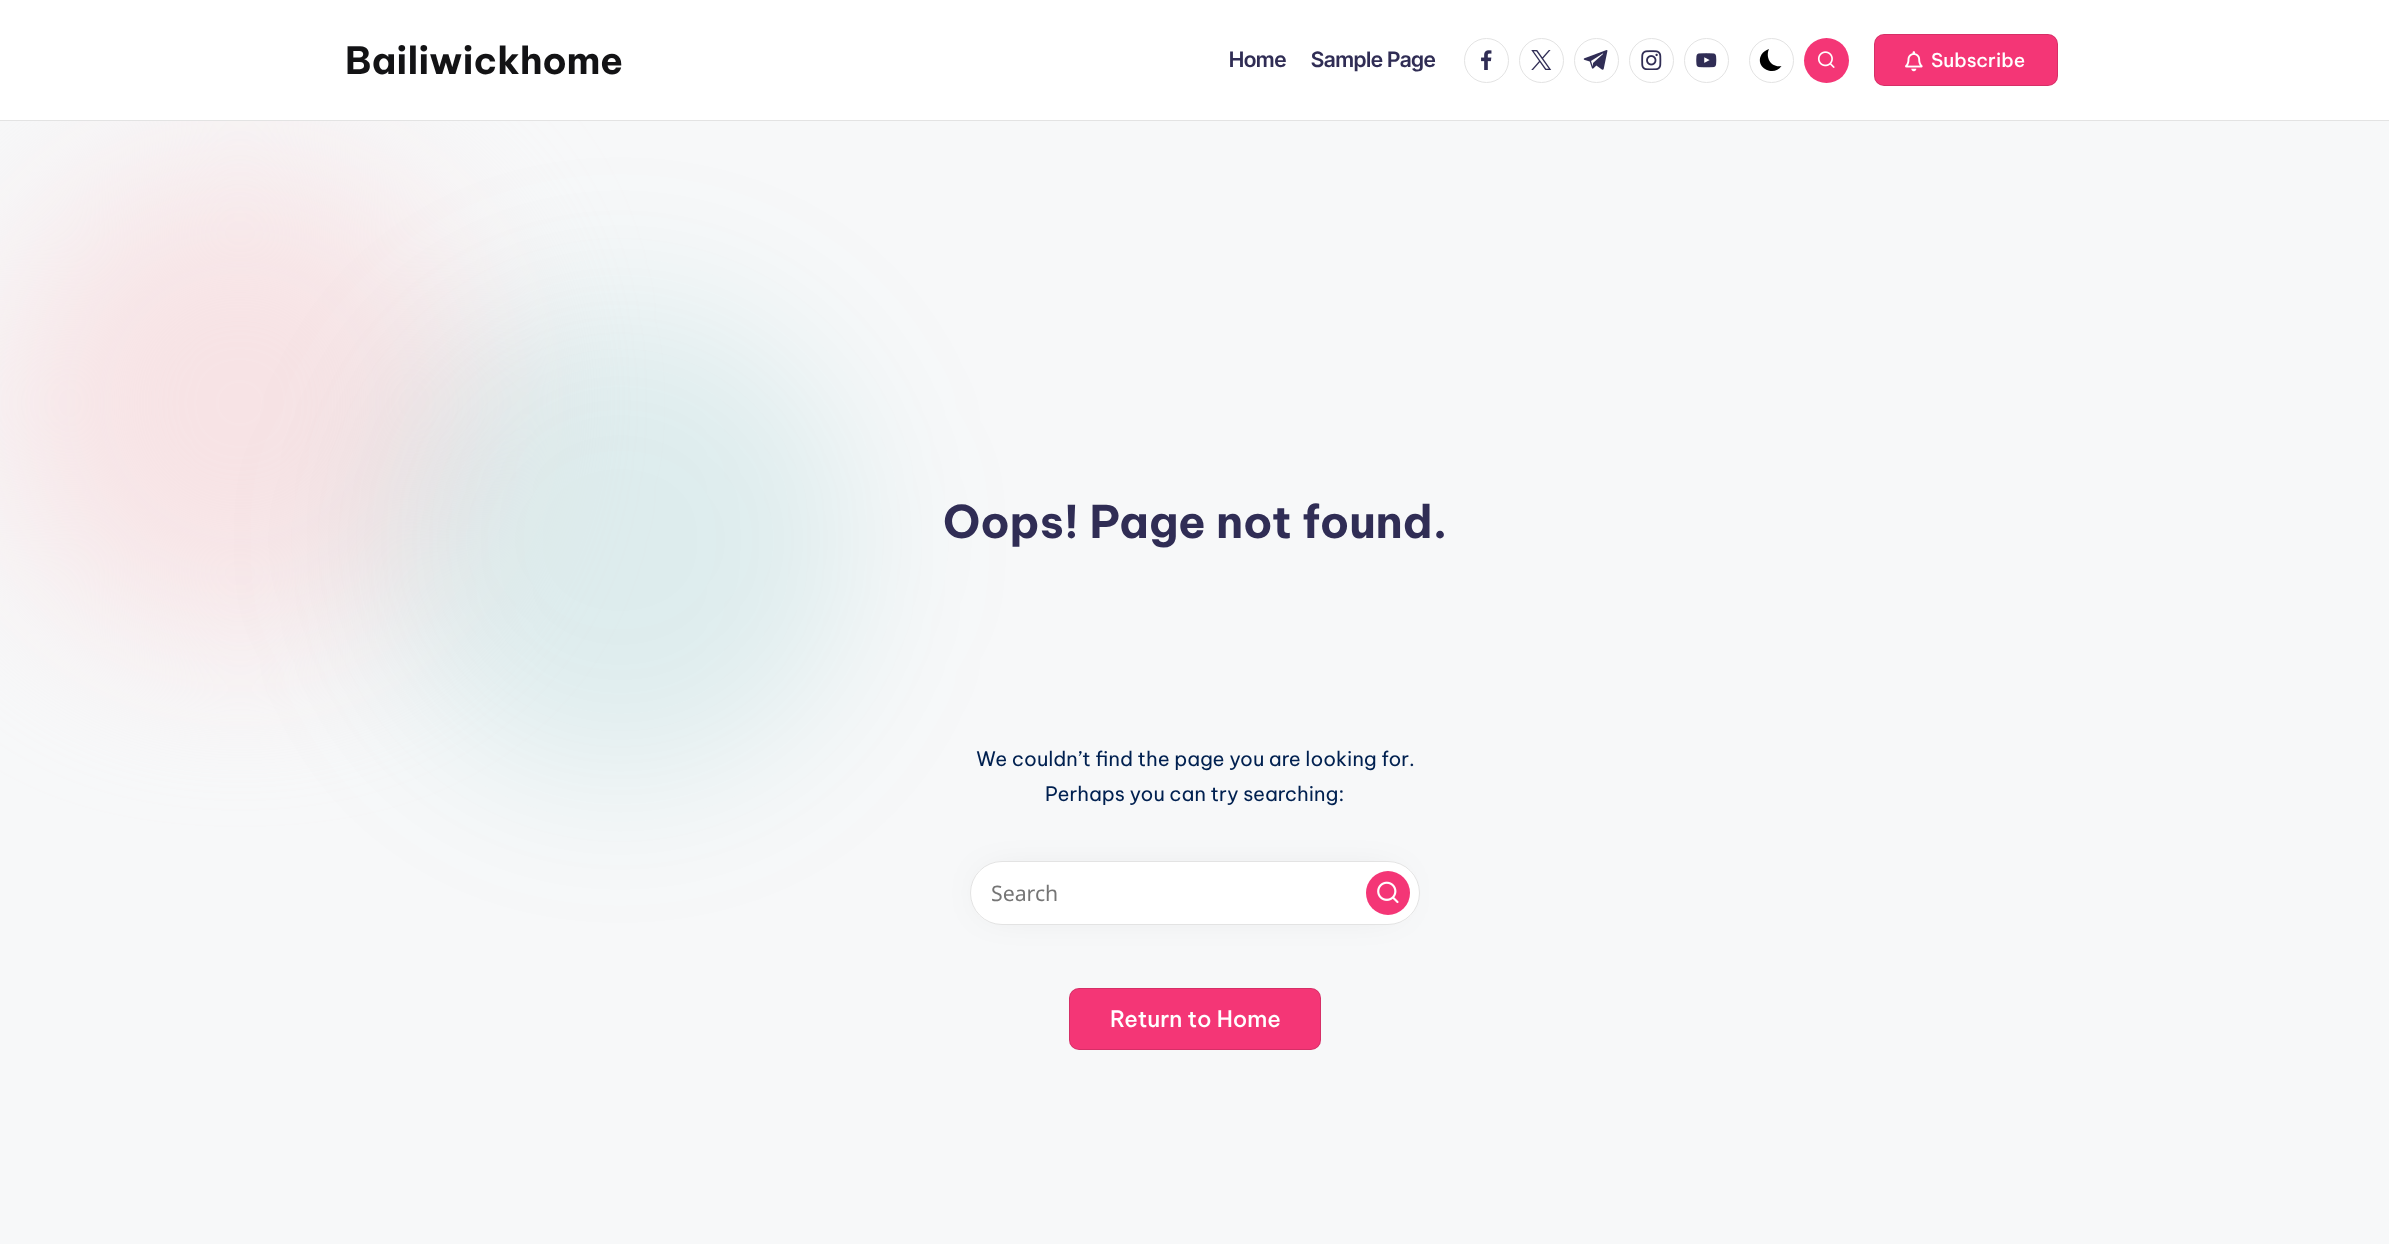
(async () => {
  const canvas = document.querySelector("canvas");
  canvas.width = 2389;
  canvas.height = 1244;
  const ctx = canvas.getContext("2d");
  ctx.miterLimit = 4;
  ctx.fontKerning = "normal";
  async function loadImage(src) {
    const img = new Image();
    img.src = src;
    await img.decode();
    return img;
  }
  let path;

  ctx.fillStyle = "#f7f8f9";
  ctx.fillRect(0, 0, 2389, 1244);
  ctx.fillStyle = "#f7e3e5";
  ctx.filter = "blur(80px)";
  ctx.beginPath();
  ctx.roundRect(0, 163, 480, 480, 240);
  ctx.fill();
  ctx.filter = "none";
  ctx.fillStyle = "rgba(4, 134, 139, 0.1)";
  ctx.filter = "blur(80px)";
  ctx.beginPath();
  ctx.roundRect(380, 300, 480, 480, 240);
  ctx.fill();
  ctx.filter = "none";
  ctx.fillStyle = "#ffffff";
  ctx.fillRect(0, 0, 2389, 120);
  ctx.fillStyle = "#e3e3e3";
  ctx.fillRect(0, 120, 2389, 1);
  ctx.beginPath();
  ctx.arc(1486.5, 60.5, 22, 0, Math.PI * 2);
  ctx.strokeStyle = "#e3e3e3";
  ctx.stroke();
  ctx.drawImage(await loadImage("img/1.png"), 1481, 50, 11, 20);
  ctx.beginPath();
  ctx.arc(1541.5, 60.5, 22, 0, Math.PI * 2);
  ctx.stroke();
  ctx.drawImage(await loadImage("img/2.png"), 1531, 50, 21, 20);
  ctx.beginPath();
  ctx.arc(1596.5, 60.5, 22, 0, Math.PI * 2);
  ctx.stroke();
  ctx.drawImage(await loadImage("img/3.png"), 1583, 50, 25, 20);
  ctx.beginPath();
  ctx.arc(1651.5, 60.5, 22, 0, Math.PI * 2);
  ctx.stroke();
  ctx.drawImage(await loadImage("img/4.png"), 1641, 50, 21, 20);
  ctx.beginPath();
  ctx.arc(1706.5, 60.5, 22, 0, Math.PI * 2);
  ctx.stroke();
  ctx.drawImage(await loadImage("img/5.png"), 1696, 53, 21, 15);
  ctx.beginPath();
  ctx.arc(1771.5, 60.5, 22, 0, Math.PI * 2);
  ctx.stroke();
  ctx.fillStyle = "#000000";
  path = new Path2D("M1781.5 66C1771.5 68 1765 58 1769 49C1766 50 1763 52 1761.5 54.5C1754 67.5 1774 77.5 1781.5 66Z");
  ctx.fill(path);
  ctx.fillStyle = "#f43676";
  ctx.beginPath();
  ctx.arc(1826.5, 60.5, 22.5, 0, Math.PI * 2);
  ctx.fill();
  ctx.drawImage(await loadImage("img/6.png"), 1817, 51, 18, 17);
  ctx.beginPath();
  ctx.roundRect(1874, 34, 184, 52, 10);
  ctx.fill();
  ctx.beginPath();
  ctx.roundRect(1874.5, 34.5, 183, 51, 9.5);
  ctx.strokeStyle = "rgba(0, 0, 0, 0.12)";
  ctx.stroke();
  ctx.drawImage(await loadImage("img/7.png"), 1905, 51, 18, 21);
  ctx.fillStyle = "rgba(0, 0, 0, 0.15)";
  ctx.filter = "blur(20px)";
  ctx.beginPath();
  ctx.roundRect(986, 881, 410, 24, 12);
  ctx.fill();
  ctx.filter = "none";
  ctx.fillStyle = "#ffffff";
  ctx.beginPath();
  ctx.roundRect(970, 861, 450, 64, 32);
  ctx.fill();
  ctx.beginPath();
  ctx.roundRect(970.5, 861.5, 449, 63, 31.5);
  ctx.strokeStyle = "rgba(185, 185, 185, 0.4)";
  ctx.stroke();
  ctx.fillStyle = "#f43676";
  ctx.beginPath();
  ctx.arc(1388, 893, 22, 0, Math.PI * 2);
  ctx.fill();
  ctx.drawImage(await loadImage("img/8.png"), 1377, 881, 22, 23);
  ctx.beginPath();
  ctx.roundRect(1069, 988, 252, 62, 10);
  ctx.fill();
  ctx.beginPath();
  ctx.roundRect(1069.5, 988.5, 251, 61, 9.5);
  ctx.strokeStyle = "rgba(0, 0, 0, 0.12)";
  ctx.stroke();
  ctx.font = "bold 37.5px Be Vietnam Pro";
  ctx.fillStyle = "#131315";
  ctx.fillText("Bailiwickhome", 345, 74);
  ctx.font = "600 21.25px Inter Tight";
  ctx.fillStyle = "#302d55";
  ctx.fillText("Home", 1229, 67);
  ctx.fillText("Sample Page", 1311, 67);
  ctx.font = "500 19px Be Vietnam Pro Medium";
  ctx.fillStyle = "#ffffff";
  ctx.fillText("Subscribe", 1931, 67);
  ctx.font = "bold 45px Be Vietnam Pro";
  ctx.fillStyle = "#302d55";
  ctx.fillText("Oops! Page not found.", 943, 538);
  ctx.font = "20px Be Vietnam Pro";
  ctx.fillStyle = "#002050";
  ctx.fillText("We couldn’t find the page you are looking for.", 976, 766);
  ctx.fillText("Perhaps you can try searching:", 1045, 801);
  ctx.font = "21.25px Noto Sans";
  ctx.fillStyle = "#757575";
  ctx.fillText("Search", 991, 901);
  ctx.font = "500 22.5px Be Vietnam Pro Medium";
  ctx.fillStyle = "#ffffff";
  ctx.fillText("Return to Home", 1110, 1027);
})();
